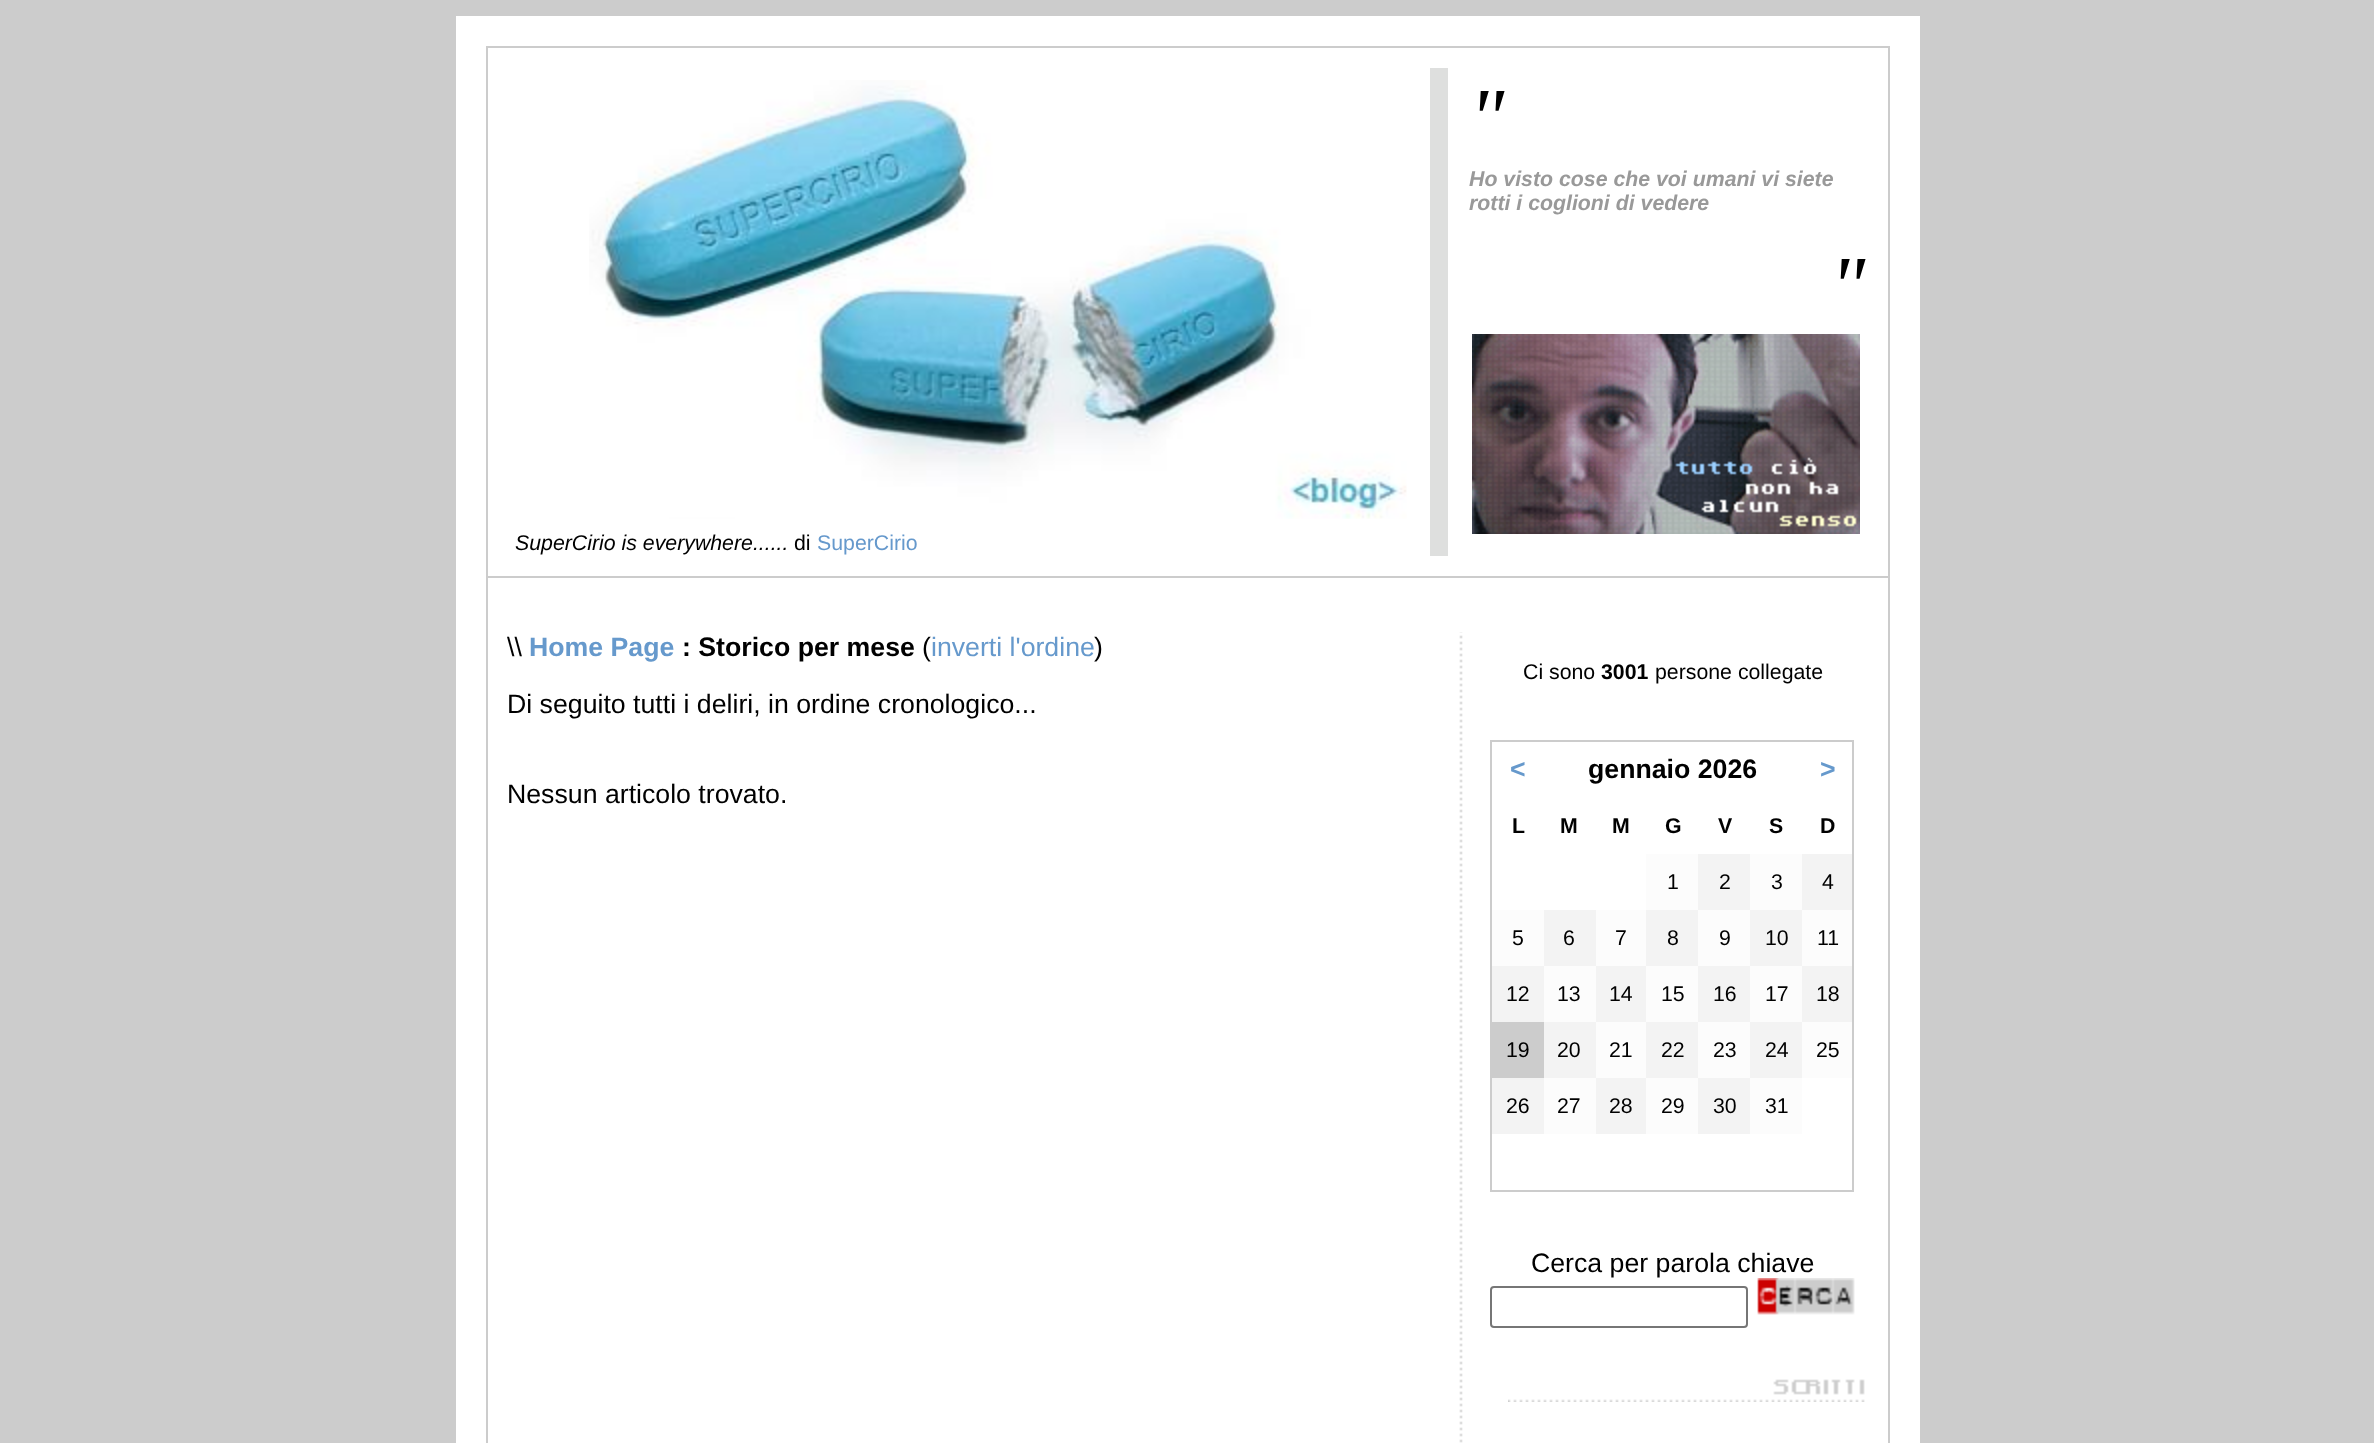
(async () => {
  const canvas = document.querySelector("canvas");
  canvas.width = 2374;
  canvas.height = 1443;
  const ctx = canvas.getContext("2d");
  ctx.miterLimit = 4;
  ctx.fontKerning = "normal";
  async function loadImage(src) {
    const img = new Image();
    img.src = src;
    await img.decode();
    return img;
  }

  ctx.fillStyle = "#cccccc";
  ctx.fillRect(0, 0, 2374, 1443);
  for (const [x, y, w, h, color] of [
    [456, 16, 1464, 1427, "#ffffff"],
    [486, 46, 1404, 2, "#cccccc"],
    [1888, 46, 2, 1397, "#cccccc"],
    [486, 46, 2, 1397, "#cccccc"],
    [1430, 68, 18, 488, "#dedfde"],
  ]) {
    ctx.fillStyle = color;
    ctx.fillRect(x, y, w, h);
  }
  ctx.drawImage(await loadImage("img/1.png"), 1472, 334, 388, 200);
  ctx.drawImage(await loadImage("img/2.png"), 589, 80, 818, 439);
  ctx.fillStyle = "#cccccc";
  ctx.fillRect(486, 576, 1404, 2);
  ctx.drawImage(await loadImage("img/3.png"), 1459, 632, 4, 811);
  for (const [x, y, w, h, color] of [
    [1490, 740, 364, 2, "#cccccc"],
    [1852, 740, 2, 452, "#cccccc"],
    [1490, 1190, 364, 2, "#cccccc"],
    [1490, 740, 2, 452, "#cccccc"],
    [1646, 854, 52, 56, "#fcfcfc"],
    [1698, 854, 52, 56, "#f3f3f3"],
    [1750, 854, 52, 56, "#fcfcfc"],
    [1802, 854, 50, 56, "#f3f3f3"],
    [1492, 910, 52, 56, "#fcfcfc"],
    [1544, 910, 52, 56, "#f3f3f3"],
    [1596, 910, 50, 56, "#fcfcfc"],
    [1646, 910, 52, 56, "#f3f3f3"],
    [1698, 910, 52, 56, "#fcfcfc"],
    [1750, 910, 52, 56, "#f3f3f3"],
    [1802, 910, 50, 56, "#fcfcfc"],
    [1492, 966, 52, 56, "#f3f3f3"],
    [1544, 966, 52, 56, "#fcfcfc"],
    [1596, 966, 50, 56, "#f3f3f3"],
    [1646, 966, 52, 56, "#fcfcfc"],
    [1698, 966, 52, 56, "#f3f3f3"],
    [1750, 966, 52, 56, "#fcfcfc"],
    [1802, 966, 50, 56, "#f3f3f3"],
    [1492, 1022, 52, 56, "#cccccc"],
    [1544, 1022, 52, 56, "#f3f3f3"],
    [1596, 1022, 50, 56, "#fcfcfc"],
    [1646, 1022, 52, 56, "#f3f3f3"],
    [1698, 1022, 52, 56, "#fcfcfc"],
    [1750, 1022, 52, 56, "#f3f3f3"],
    [1802, 1022, 50, 56, "#fcfcfc"],
    [1492, 1078, 52, 56, "#f3f3f3"],
    [1544, 1078, 52, 56, "#fcfcfc"],
    [1596, 1078, 50, 56, "#f3f3f3"],
    [1646, 1078, 52, 56, "#fcfcfc"],
    [1698, 1078, 52, 56, "#f3f3f3"],
    [1750, 1078, 52, 56, "#fcfcfc"],
  ]) {
    ctx.fillStyle = color;
    ctx.fillRect(x, y, w, h);
  }
  ctx.beginPath();
  ctx.roundRect(1491, 1287, 256, 40, 3);
  ctx.strokeStyle = "#767676";
  ctx.lineWidth = 2;
  ctx.stroke();
  ctx.drawImage(await loadImage("img/4.png"), 1757, 1278, 98, 37);
  ctx.drawImage(await loadImage("img/5.png"), 1508, 1379, 357, 23);
  ctx.font = "italic 84px Liberation Serif";
  ctx.fillStyle = "#000000";
  ctx.fillText("\"", 1469, 146);
  ctx.font = "italic bold 21.3px Liberation Sans";
  ctx.fillStyle = "#999999";
  ctx.fillText("Ho visto cose che voi umani vi siete", 1469, 186);
  ctx.fillText("rotti i coglioni di vedere", 1469, 210);
  ctx.font = "italic 84px Liberation Serif";
  ctx.fillStyle = "#000000";
  ctx.fillText("\"", 1830, 314);
  ctx.font = "italic 21.3px Liberation Sans";
  ctx.fillText("SuperCirio is everywhere......", 515, 550);
  ctx.font = "21.3px Liberation Sans";
  ctx.fillText("di", 794, 550);
  ctx.fillStyle = "#6699cc";
  ctx.fillText("SuperCirio", 817, 550);
  ctx.font = "26.7px Liberation Sans";
  ctx.fillStyle = "#000000";
  ctx.fillText("\\\\", 507, 656);
  ctx.font = "bold 26.7px Liberation Sans";
  ctx.fillStyle = "#6699cc";
  ctx.fillText("Home Page", 529, 656);
  ctx.fillStyle = "#000000";
  ctx.fillText(": Storico per mese", 682, 656);
  ctx.font = "26.7px Liberation Sans";
  ctx.fillText("(", 922, 656);
  ctx.fillStyle = "#6699cc";
  ctx.fillText("inverti l'ordine", 931, 656);
  ctx.fillStyle = "#000000";
  for (const [text, x, y] of [
    [")", 1094, 656],
    ["Di seguito tutti i deliri, in ordine cronologico...", 507, 713],
    ["Nessun articolo trovato.", 507, 803],
  ]) {
    ctx.fillText(text, x, y);
  }
  ctx.font = "21.3px Liberation Sans";
  ctx.fillText("Ci sono", 1523, 679);
  ctx.font = "bold 21.3px Liberation Sans";
  ctx.fillText("3001", 1601, 679);
  ctx.font = "21.3px Liberation Sans";
  ctx.fillText("persone collegate", 1655, 679);
  ctx.font = "bold 26.7px Liberation Sans";
  ctx.fillStyle = "#6699cc";
  ctx.fillText("<", 1510, 778);
  ctx.fillStyle = "#000000";
  ctx.fillText("gennaio 2026", 1588, 778);
  ctx.fillStyle = "#6699cc";
  ctx.fillText(">", 1820, 778);
  ctx.font = "bold 21.3px Liberation Sans";
  ctx.fillStyle = "#000000";
  for (const [text, x, y] of [
    ["L", 1512, 833],
    ["M", 1560, 833],
    ["M", 1612, 833],
    ["G", 1665, 833],
    ["V", 1718, 833],
    ["S", 1769, 833],
    ["D", 1820, 833],
  ]) {
    ctx.fillText(text, x, y);
  }
  ctx.font = "21.3px Liberation Sans";
  for (const [text, x, y] of [
    ["1", 1667, 889],
    ["2", 1719, 889],
    ["3", 1771, 889],
    ["4", 1822, 889],
    ["5", 1512, 945],
    ["6", 1563, 945],
    ["7", 1615, 945],
    ["8", 1667, 945],
    ["9", 1719, 945],
    ["10", 1765, 945],
    ["11", 1817, 945],
    ["12", 1506, 1001],
    ["13", 1557, 1001],
    ["14", 1609, 1001],
    ["15", 1661, 1001],
    ["16", 1713, 1001],
    ["17", 1765, 1001],
    ["18", 1816, 1001],
    ["19", 1506, 1057],
    ["20", 1557, 1057],
    ["21", 1609, 1057],
    ["22", 1661, 1057],
    ["23", 1713, 1057],
    ["24", 1765, 1057],
    ["25", 1816, 1057],
    ["26", 1506, 1113],
    ["27", 1557, 1113],
    ["28", 1609, 1113],
    ["29", 1661, 1113],
    ["30", 1713, 1113],
    ["31", 1765, 1113],
  ]) {
    ctx.fillText(text, x, y);
  }
  ctx.font = "26.7px Liberation Sans";
  ctx.fillText("Cerca per parola chiave", 1531, 1272);
})();
